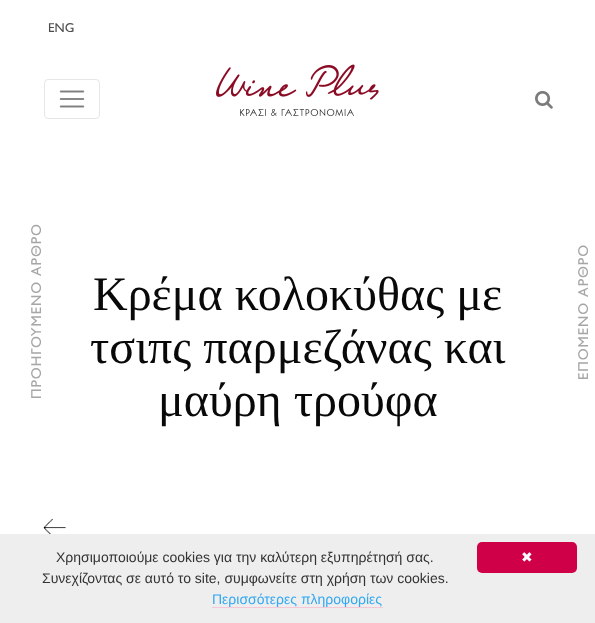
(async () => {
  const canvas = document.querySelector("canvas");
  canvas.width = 595;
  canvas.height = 623;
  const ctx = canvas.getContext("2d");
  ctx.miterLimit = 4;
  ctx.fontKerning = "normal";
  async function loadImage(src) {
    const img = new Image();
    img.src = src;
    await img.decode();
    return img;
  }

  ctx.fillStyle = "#ffffff";
  ctx.fillRect(0, 0, 595, 623);
  ctx.drawImage(await loadImage("img/1.png"), 216, 64, 163, 52);
  ctx.drawImage(await loadImage("img/2.png"), 535, 90, 18, 19);
  ctx.beginPath();
  ctx.roundRect(44.5, 79.5, 55, 39, 3.5);
  ctx.strokeStyle = "#e6e6e6";
  ctx.stroke();
  ctx.drawImage(await loadImage("img/3.png"), 59, 90, 26, 18);
  ctx.drawImage(await loadImage("img/4.png"), 43, 519, 23, 15);
  ctx.fillStyle = "#eeeeee";
  ctx.fillRect(0, 534, 595, 89);
  ctx.fillStyle = "#f6c7d6";
  ctx.fillRect(212, 607, 171, 1);
  ctx.fillStyle = "#cf0048";
  ctx.beginPath();
  ctx.roundRect(477, 542, 100, 31, 5);
  ctx.fill();
  ctx.font = "13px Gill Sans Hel";
  ctx.fillStyle = "#4c4c4c";
  ctx.fillText("ENG", 48, 32);
  ctx.letterSpacing = "1px";
  ctx.font = "14.4px Gill Sans Hel";
  ctx.fillStyle = "#a6a6a6";
  ctx.save();
  ctx.translate(41, 399);
  ctx.rotate(-90 * Math.PI / 180);
  ctx.fillText("ΠΡΟΗΓΟΥΜΕΝΟ ΑΡΘΡΟ", 0, 0);
  ctx.restore();
  ctx.save();
  ctx.translate(588, 380);
  ctx.rotate(-90 * Math.PI / 180);
  ctx.fillText("ΕΠΟΜΕΝΟ ΑΡΘΡΟ", 0, 0);
  ctx.restore();
  ctx.letterSpacing = "0px";
  ctx.font = "48px Tinos";
  ctx.fillStyle = "#090909";
  for (const [text, x, y] of [
    ["Κρέμα κολοκύθας με", 93, 310],
    ["τσιπς παρμεζάνας και", 90, 363],
    ["μαύρη τρούφα", 158, 416],
  ]) {
    ctx.fillText(text, x, y);
  }
  ctx.font = "14px Liberation Sans";
  ctx.fillStyle = "#333333";
  ctx.fillText("Χρησιμοποιούμε cookies για την καλύτερη εξυπηρέτησή σας.", 56, 562);
  ctx.fillText("Συνεχίζοντας σε αυτό το site, συμφωνείτε στη χρήση των cookies.", 42, 583);
  ctx.fillStyle = "#31a8f0";
  ctx.fillText("Περισσότερες πληροφορίες", 212, 604);
  ctx.font = "14px DejaVu Sans";
  ctx.fillStyle = "#ffffff";
  ctx.fillText("✖", 521, 562);
})();
